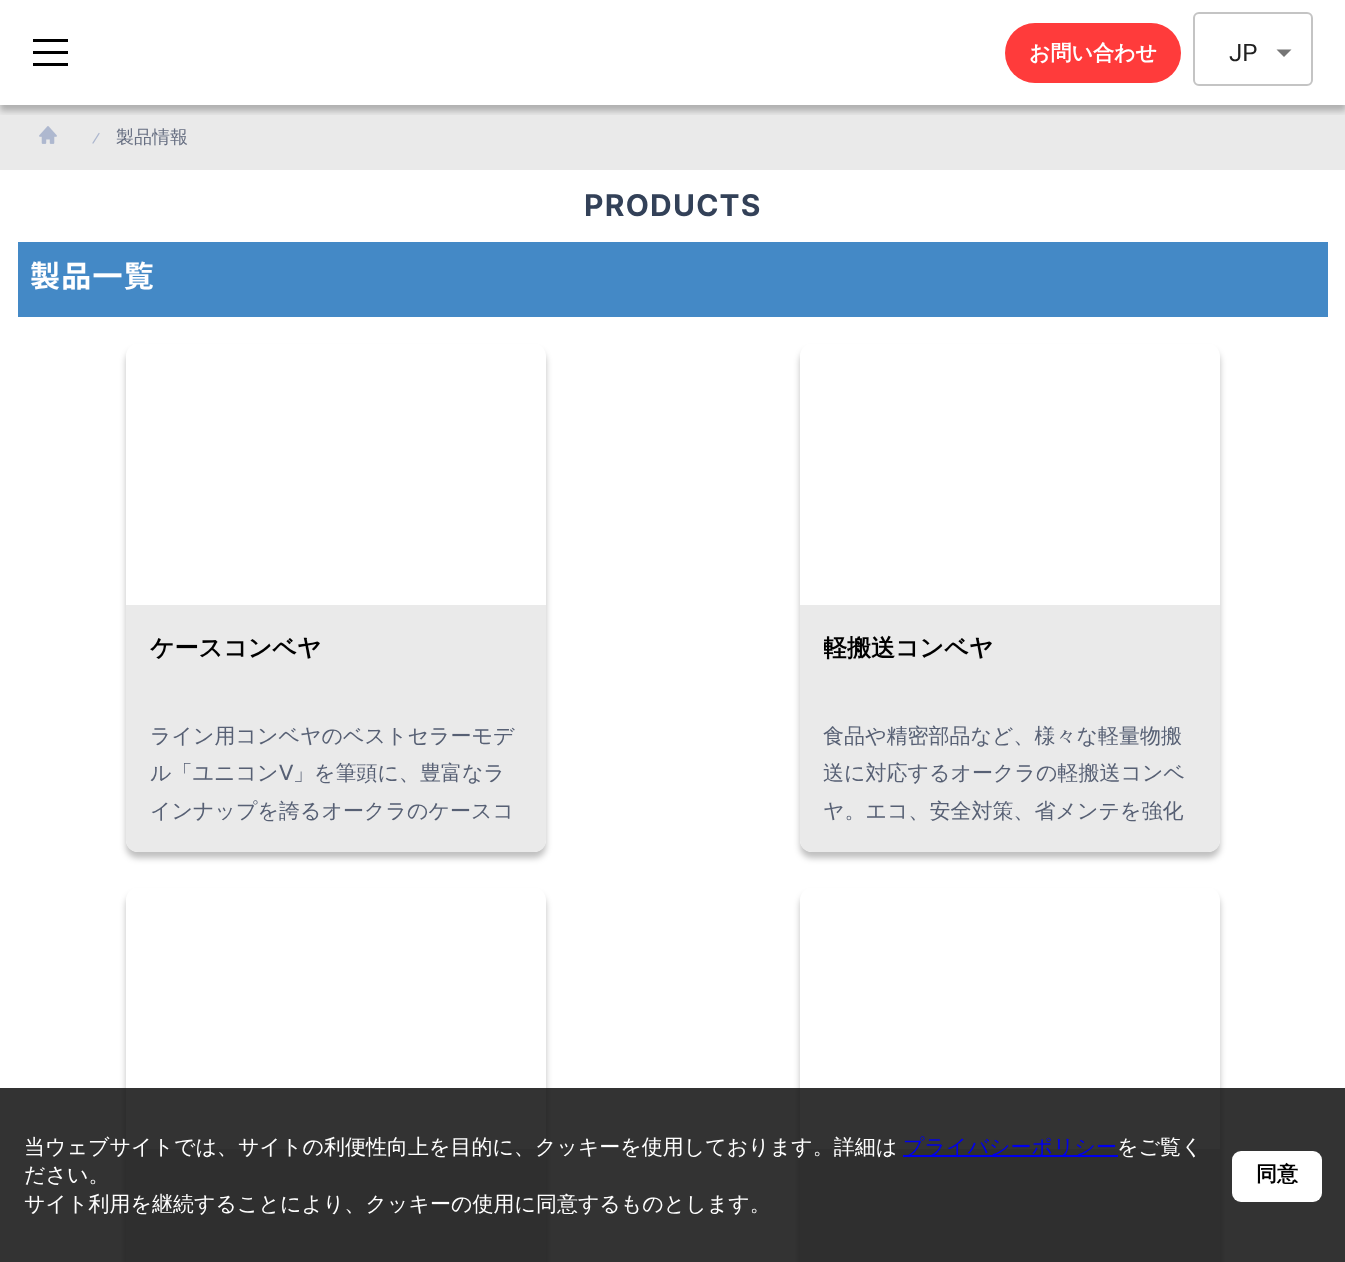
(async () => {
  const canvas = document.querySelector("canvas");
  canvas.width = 1345;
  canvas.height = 1262;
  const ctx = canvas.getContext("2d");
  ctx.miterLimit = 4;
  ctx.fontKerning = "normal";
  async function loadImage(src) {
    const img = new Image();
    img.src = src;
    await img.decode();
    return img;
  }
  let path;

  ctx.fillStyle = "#ffffff";
  ctx.fillRect(0, 0, 1345, 1262);
  ctx.fillStyle = "#eaeaea";
  ctx.fillRect(0, 105, 1345, 65);
  ctx.save();
  ctx.beginPath();
  ctx.rect(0, 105, 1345, 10);
  ctx.clip();
  ctx.fillStyle = "rgba(0, 0, 0, 0.25)";
  ctx.filter = "blur(3px)";
  ctx.beginPath();
  ctx.rect(0, 6, 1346, 105);
  ctx.fill();
  ctx.filter = "none";
  ctx.restore();
  for (const [x, y, w, h, color] of [
    [33, 39, 35, 3, "#000000"],
    [33, 51, 35, 3, "#000000"],
    [33, 63, 35, 3, "#000000"],
  ]) {
    ctx.fillStyle = color;
    ctx.fillRect(x, y, w, h);
  }
  ctx.fillStyle = "#ff3b3b";
  ctx.beginPath();
  ctx.roundRect(1005, 23, 176, 60, 30);
  ctx.fill();
  ctx.fillStyle = "#757575";
  path = new Path2D("M1276.5 49.5L1284 57L1291.5 49.5Z");
  ctx.fill(path);
  ctx.beginPath();
  ctx.roundRect(1194, 13, 118, 72, 5);
  ctx.strokeStyle = "#c4c4c4";
  ctx.lineWidth = 2;
  ctx.stroke();
  ctx.drawImage(await loadImage("img/1.png"), 39, 126, 18, 18);
  path = new Path2D("M99 133.5L93 143");
  ctx.strokeStyle = "#aeb8cf";
  ctx.lineWidth = 1.4;
  ctx.lineCap = "round";
  ctx.stroke(path);
  ctx.fillStyle = "#4489c6";
  ctx.fillRect(18, 242, 1310, 75);
  ctx.save();
  path = new Path2D("M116 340H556V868H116ZM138 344H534C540.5 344 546 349.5 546 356V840C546 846.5 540.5 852 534 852H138C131.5 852 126 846.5 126 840V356C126 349.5 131.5 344 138 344Z");
  ctx.clip(path, "evenodd");
  ctx.fillStyle = "rgba(0, 0, 0, 0.25)";
  ctx.filter = "blur(3px)";
  ctx.beginPath();
  ctx.roundRect(126, 350, 420, 508, 12);
  ctx.fill();
  ctx.filter = "none";
  ctx.restore();
  ctx.fillStyle = "#eaeaea";
  ctx.beginPath();
  ctx.roundRect(126, 605, 420, 247, [0, 0, 12, 12]);
  ctx.fill();
  ctx.save();
  path = new Path2D("M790 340H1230V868H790ZM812 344H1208C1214.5 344 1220 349.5 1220 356V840C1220 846.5 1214.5 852 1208 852H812C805.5 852 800 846.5 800 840V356C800 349.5 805.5 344 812 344Z");
  ctx.clip(path, "evenodd");
  ctx.fillStyle = "rgba(0, 0, 0, 0.25)";
  ctx.filter = "blur(3px)";
  ctx.beginPath();
  ctx.roundRect(800, 350, 420, 508, 12);
  ctx.fill();
  ctx.filter = "none";
  ctx.restore();
  ctx.beginPath();
  ctx.roundRect(800, 605, 420, 247, [0, 0, 12, 12]);
  ctx.fill();
  ctx.save();
  path = new Path2D("M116 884H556V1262H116ZM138 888H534C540.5 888 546 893.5 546 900V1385C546 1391.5 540.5 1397 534 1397H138C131.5 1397 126 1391.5 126 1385V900C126 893.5 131.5 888 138 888Z");
  ctx.clip(path, "evenodd");
  ctx.fillStyle = "rgba(0, 0, 0, 0.25)";
  ctx.filter = "blur(3px)";
  ctx.beginPath();
  ctx.roundRect(126, 894, 420, 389, 12);
  ctx.fill();
  ctx.filter = "none";
  ctx.restore();
  ctx.fillRect(126, 1149, 420, 113);
  ctx.save();
  path = new Path2D("M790 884H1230V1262H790ZM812 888H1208C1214.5 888 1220 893.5 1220 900V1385C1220 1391.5 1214.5 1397 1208 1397H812C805.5 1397 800 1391.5 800 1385V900C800 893.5 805.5 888 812 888Z");
  ctx.clip(path, "evenodd");
  ctx.fillStyle = "rgba(0, 0, 0, 0.25)";
  ctx.filter = "blur(3px)";
  ctx.beginPath();
  ctx.roundRect(800, 894, 420, 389, 12);
  ctx.fill();
  ctx.filter = "none";
  ctx.restore();
  for (const [x, y, w, h, color] of [
    [800, 1149, 420, 113, "#eaeaea"],
    [0, 1088, 1345, 174, "rgba(0, 0, 0, 0.8)"],
    [903, 1155, 215, 2, "#0000ee"],
  ]) {
    ctx.fillStyle = color;
    ctx.fillRect(x, y, w, h);
  }
  ctx.fillStyle = "#ffffff";
  ctx.beginPath();
  ctx.roundRect(1232, 1151, 90, 51, 9);
  ctx.fill();
  ctx.font = "bold 21px WenQuanYi Zen Hei";
  ctx.fillText("お問い合わせ", 1029, 60);
  ctx.font = "24px Roboto";
  ctx.fillStyle = "#212121";
  ctx.fillText("JP", 1229, 61);
  ctx.font = "500 18px WenQuanYi Zen Hei";
  ctx.fillStyle = "#676f82";
  ctx.fillText("製品情報", 116, 143);
  ctx.letterSpacing = "1.25px";
  ctx.font = "bold 30px Inter";
  ctx.fillStyle = "#334158";
  ctx.fillText("PRODUCTS", 584, 216);
  ctx.font = "bold 30px Noto Sans JP";
  ctx.fillStyle = "#ffffff";
  ctx.fillText("製品一覧", 30, 287);
  ctx.letterSpacing = "0px";
  ctx.font = "bold 24px WenQuanYi Zen Hei";
  ctx.fillStyle = "#000000";
  ctx.fillText("ケースコンベヤ", 150, 656);
  ctx.font = "500 21px WenQuanYi Zen Hei";
  ctx.fillStyle = "#576074";
  ctx.fillText("ライン用コンベヤのベストセラーモデ", 150, 743);
  ctx.fillText("ル「ユニコン", 150, 780);
  ctx.font = "21px DejaVu Sans";
  ctx.fillText("Ⅴ", 279, 780);
  ctx.font = "500 21px WenQuanYi Zen Hei";
  ctx.fillText("」を筆頭に、豊富なラ", 293, 780);
  ctx.fillText("インナップを誇るオークラのケースコ", 150, 818);
  ctx.save();
  ctx.beginPath();
  ctx.rect(824, 629, 372, 75);
  ctx.clip();
  ctx.font = "bold 24px WenQuanYi Zen Hei";
  ctx.fillStyle = "#000000";
  ctx.fillText("軽搬送コンベヤ", 823, 656);
  ctx.restore();
  for (const [text, x, y] of [
    ["食品や精密部品など、様々な軽量物搬", 823, 743],
    ["送に対応するオークラの軽搬送コンベ", 823, 780],
    ["ヤ。エコ、安全対策、省メンテを強化", 823, 818],
  ]) {
    ctx.fillText(text, x, y);
  }
  ctx.fillStyle = "#ffffff";
  ctx.fillText("当ウェブサイトでは、サイトの利便性向上を目的に、クッキーを使用しております。詳細は", 24, 1154);
  ctx.fillStyle = "#0000ee";
  ctx.fillText("プライバシーポリシー", 903, 1154);
  ctx.fillStyle = "#ffffff";
  for (const [text, x, y] of [
    ["をご覧く", 1117, 1154],
    ["ださい。", 24, 1182],
    ["サイト利用を継続することにより、クッキーの使用に同意するものとします。", 24, 1211],
  ]) {
    ctx.fillText(text, x, y);
  }
  ctx.font = "bold 21px WenQuanYi Zen Hei";
  ctx.fillStyle = "#000000";
  ctx.fillText("同意", 1256, 1181);
})();
